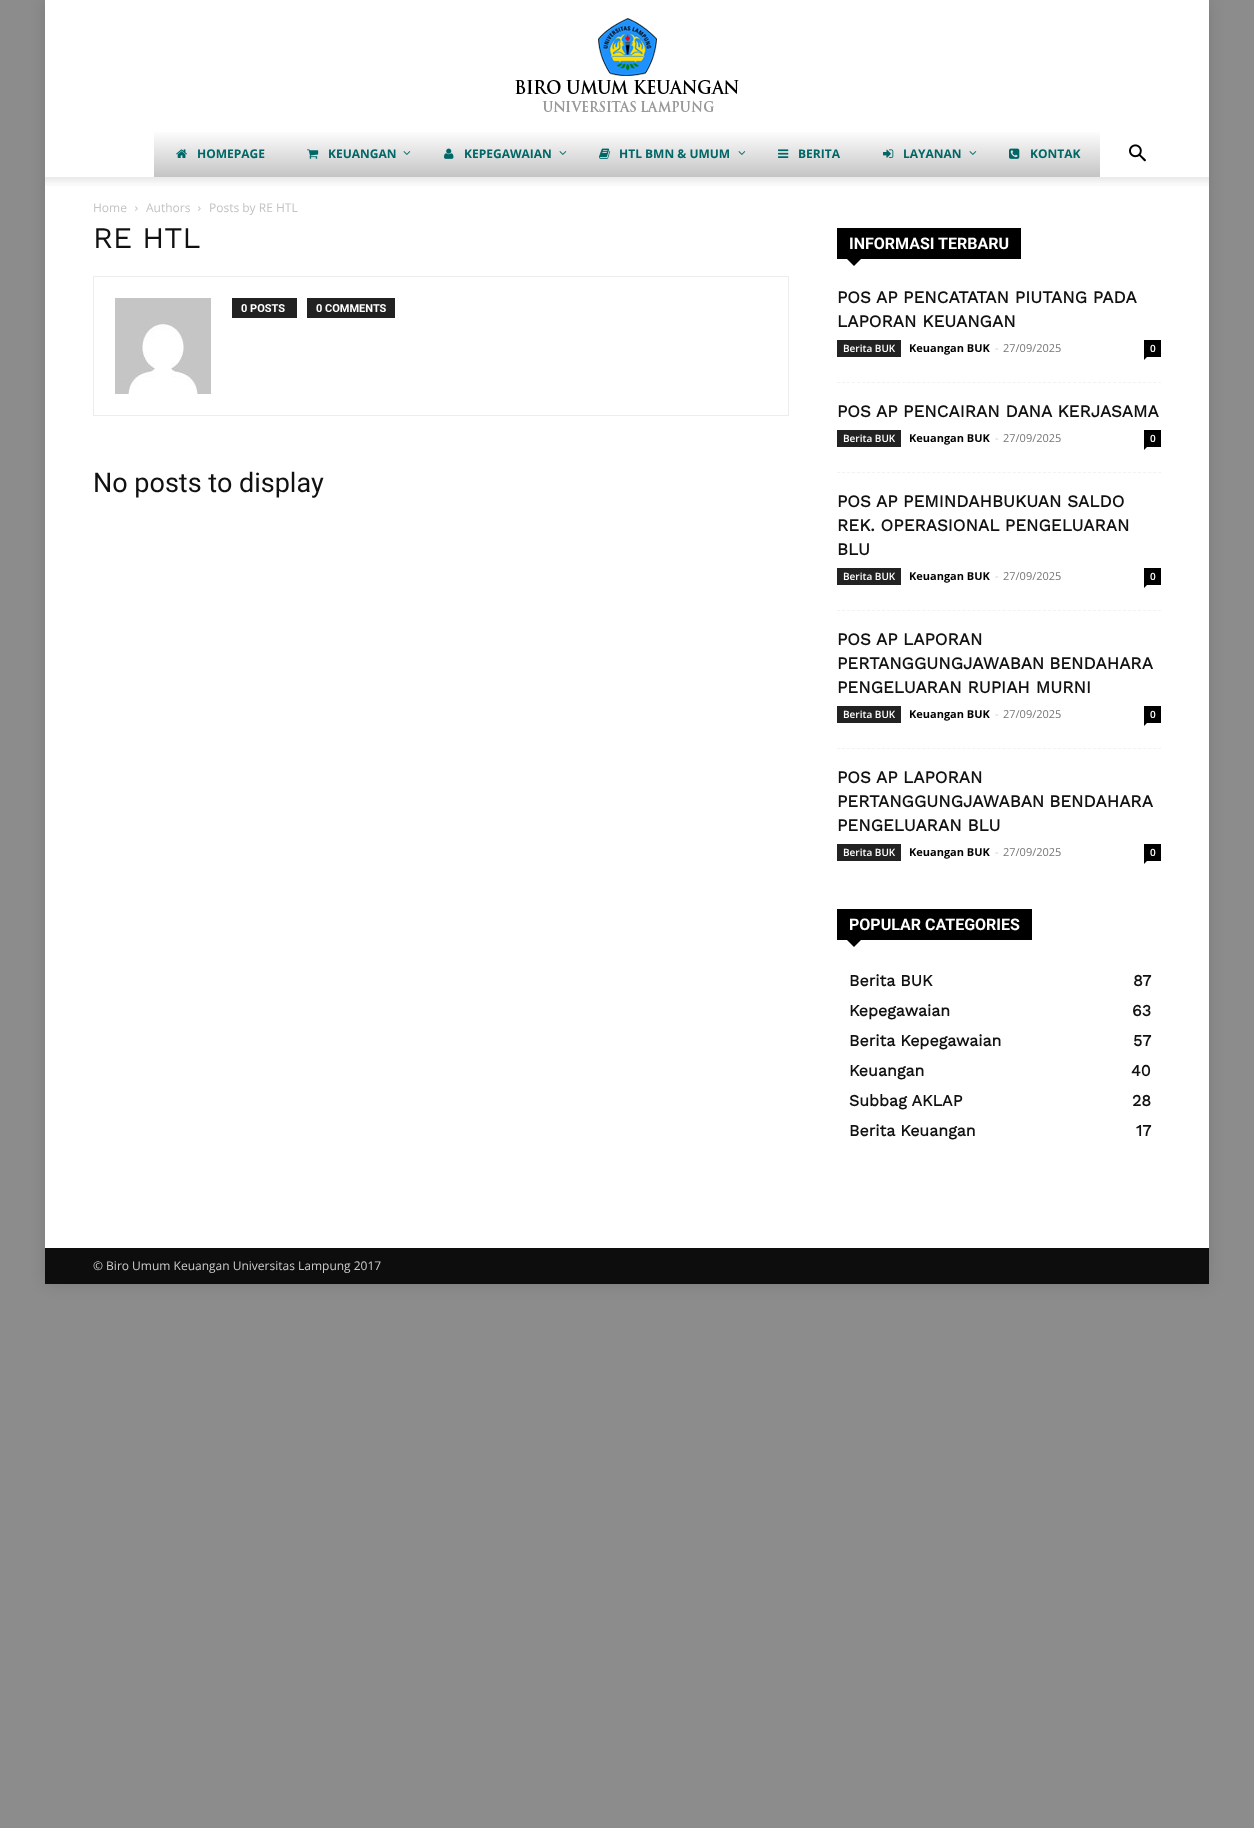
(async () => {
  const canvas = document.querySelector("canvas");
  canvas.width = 1254;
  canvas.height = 1828;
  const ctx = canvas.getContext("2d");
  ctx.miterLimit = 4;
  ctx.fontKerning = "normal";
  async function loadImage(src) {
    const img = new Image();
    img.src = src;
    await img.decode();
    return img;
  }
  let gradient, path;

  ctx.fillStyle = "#8c8c8c";
  ctx.fillRect(0, 0, 1254, 1828);
  ctx.fillStyle = "rgba(0, 0, 0, 0.12)";
  ctx.filter = "blur(7.5px)";
  ctx.beginPath();
  ctx.rect(45, 0, 1164, 1284);
  ctx.fill();
  ctx.filter = "none";
  ctx.fillStyle = "#ffffff";
  ctx.fillRect(45, 0, 1164, 177);
  ctx.drawImage(await loadImage("img/1.png"), 515, 18, 224, 94);
  gradient = ctx.createLinearGradient(627, 130, 627, 177);
  gradient.addColorStop(0, "#ffffff");
  gradient.addColorStop(1, "#c4c4c4");
  ctx.fillStyle = gradient;
  ctx.fillRect(154, 132, 946, 45);
  ctx.drawImage(await loadImage("img/2.png"), 176, 149, 11, 9);
  ctx.drawImage(await loadImage("img/3.png"), 307, 149, 12, 10);
  ctx.drawImage(await loadImage("img/4.png"), 403, 151, 8, 4);
  ctx.drawImage(await loadImage("img/5.png"), 444, 148, 10, 11);
  ctx.drawImage(await loadImage("img/4.png"), 559, 151, 8, 4);
  ctx.drawImage(await loadImage("img/6.png"), 599, 148, 12, 11);
  ctx.drawImage(await loadImage("img/4.png"), 738, 151, 8, 4);
  ctx.drawImage(await loadImage("img/7.png"), 778, 149, 11, 9);
  ctx.drawImage(await loadImage("img/8.png"), 883, 149, 11, 9);
  ctx.drawImage(await loadImage("img/4.png"), 969, 151, 8, 4);
  ctx.drawImage(await loadImage("img/9.png"), 1009, 148, 11, 11);
  ctx.drawImage(await loadImage("img/10.png"), 1129, 144, 17, 18);
  ctx.fillStyle = "#ffffff";
  ctx.fillRect(45, 177, 1164, 1071);
  ctx.drawImage(await loadImage("img/11.png"), 45, 177, 1164, 9);
  ctx.drawImage(await loadImage("img/12.png"), 135, 206, 3, 5);
  ctx.drawImage(await loadImage("img/12.png"), 198, 206, 3, 5);
  ctx.strokeStyle = "#ededed";
  ctx.strokeRect(93.5, 276.5, 695, 139);
  ctx.drawImage(await loadImage("img/13.png"), 115, 298, 96, 96);
  for (const [x, y, w, h, color] of [
    [232, 298, 65, 20, "#222222"],
    [307, 298, 88, 20, "#222222"],
    [837, 228, 184, 31, "#000000"],
  ]) {
    ctx.fillStyle = color;
    ctx.fillRect(x, y, w, h);
  }
  path = new Path2D("M847 259H861L854 266Z");
  ctx.fill(path);
  path = new Path2D("M837 382.5H1161");
  ctx.strokeStyle = "#f2f2f2";
  ctx.setLineDash([3, 2.02]);
  ctx.stroke(path);
  ctx.fillStyle = "#222222";
  ctx.fillRect(837, 340, 64, 17);
  ctx.fillStyle = "#000000";
  ctx.fillRect(1144, 340, 17, 17);
  path = new Path2D("M1144 357H1147L1144 360Z");
  ctx.fill(path);
  path = new Path2D("M837 472.5H1161");
  ctx.stroke(path);
  ctx.fillStyle = "#222222";
  ctx.fillRect(837, 430, 64, 17);
  ctx.fillStyle = "#000000";
  ctx.fillRect(1144, 430, 17, 17);
  path = new Path2D("M1144 447H1147L1144 450Z");
  ctx.fill(path);
  path = new Path2D("M837 610.5H1161");
  ctx.stroke(path);
  ctx.fillStyle = "#222222";
  ctx.fillRect(837, 568, 64, 17);
  ctx.fillStyle = "#000000";
  ctx.fillRect(1144, 568, 17, 17);
  path = new Path2D("M1144 585H1147L1144 588Z");
  ctx.fill(path);
  path = new Path2D("M837 748.5H1161");
  ctx.stroke(path);
  ctx.fillStyle = "#222222";
  ctx.fillRect(837, 706, 64, 17);
  ctx.fillStyle = "#000000";
  ctx.fillRect(1144, 706, 17, 17);
  path = new Path2D("M1144 723H1147L1144 726Z");
  ctx.fill(path);
  ctx.fillStyle = "#222222";
  ctx.fillRect(837, 844, 64, 17);
  ctx.fillStyle = "#000000";
  ctx.fillRect(1144, 844, 17, 17);
  path = new Path2D("M1144 861H1147L1144 864Z");
  ctx.fill(path);
  ctx.fillRect(837, 909, 195, 31);
  path = new Path2D("M847 940H861L854 947Z");
  ctx.fill(path);
  ctx.fillStyle = "#0d0d0d";
  ctx.fillRect(45, 1248, 1164, 36);
  ctx.font = "bold 12px Open Sans";
  ctx.fillStyle = "#006666";
  for (const [text, x, y] of [
    ["HOMEPAGE", 197, 158],
    ["KEUANGAN", 328, 158],
    ["KEPEGAWAIAN", 464, 158],
    ["HTL BMN & UMUM", 619, 158],
    ["BERITA", 798, 158],
    ["LAYANAN", 903, 158],
    ["KONTAK", 1030, 158],
  ]) {
    ctx.fillText(text, x, y);
  }
  ctx.font = "12px Open Sans";
  ctx.fillStyle = "#c3c3c3";
  for (const [text, x, y] of [
    ["Home", 93, 212],
    ["Authors", 146, 212],
    ["Posts by RE HTL", 209, 212],
  ]) {
    ctx.fillText(text, x, y);
  }
  ctx.font = "30px Work Sans";
  ctx.fillStyle = "#111111";
  ctx.fillText("RE HTL", 93, 248);
  ctx.font = "bold 11px Roboto";
  ctx.fillStyle = "#ffffff";
  ctx.fillText("0 POSTS", 241, 312);
  ctx.fillText("0 COMMENTS", 316, 312);
  ctx.font = "27px Roboto";
  ctx.fillStyle = "#111111";
  ctx.fillText("No posts to display", 93, 492);
  ctx.font = "bold 16px Roboto";
  ctx.fillStyle = "#ffffff";
  ctx.fillText("INFORMASI TERBARU", 849, 249);
  ctx.font = "bold 17px Work Sans";
  ctx.fillStyle = "#111111";
  ctx.fillText("POS AP PENCATATAN PIUTANG PADA", 837, 303);
  ctx.fillText("LAPORAN KEUANGAN", 837, 327);
  ctx.font = "600 10px Open Sans";
  ctx.fillStyle = "#ffffff";
  ctx.fillText("Berita BUK", 843, 352);
  ctx.font = "bold 11px Open Sans";
  ctx.fillStyle = "#000000";
  ctx.fillText("Keuangan BUK", 909, 352);
  ctx.font = "11px Open Sans";
  ctx.fillStyle = "#cccccc";
  ctx.fillText("-", 995, 352);
  ctx.fillStyle = "#767676";
  ctx.fillText("27/09/2025", 1003, 352);
  ctx.font = "600 10px Open Sans";
  ctx.fillStyle = "#ffffff";
  ctx.fillText("0", 1150, 352);
  ctx.font = "bold 17px Work Sans";
  ctx.fillStyle = "#111111";
  ctx.fillText("POS AP PENCAIRAN DANA KERJASAMA", 837, 417);
  ctx.font = "600 10px Open Sans";
  ctx.fillStyle = "#ffffff";
  ctx.fillText("Berita BUK", 843, 442);
  ctx.font = "bold 11px Open Sans";
  ctx.fillStyle = "#000000";
  ctx.fillText("Keuangan BUK", 909, 442);
  ctx.font = "11px Open Sans";
  ctx.fillStyle = "#cccccc";
  ctx.fillText("-", 995, 442);
  ctx.fillStyle = "#767676";
  ctx.fillText("27/09/2025", 1003, 442);
  ctx.font = "600 10px Open Sans";
  ctx.fillStyle = "#ffffff";
  ctx.fillText("0", 1150, 442);
  ctx.font = "bold 17px Work Sans";
  ctx.fillStyle = "#111111";
  for (const [text, x, y] of [
    ["POS AP PEMINDAHBUKUAN SALDO", 837, 507],
    ["REK. OPERASIONAL PENGELUARAN", 837, 531],
    ["BLU", 837, 555],
  ]) {
    ctx.fillText(text, x, y);
  }
  ctx.font = "600 10px Open Sans";
  ctx.fillStyle = "#ffffff";
  ctx.fillText("Berita BUK", 843, 580);
  ctx.font = "bold 11px Open Sans";
  ctx.fillStyle = "#000000";
  ctx.fillText("Keuangan BUK", 909, 580);
  ctx.font = "11px Open Sans";
  ctx.fillStyle = "#cccccc";
  ctx.fillText("-", 995, 580);
  ctx.fillStyle = "#767676";
  ctx.fillText("27/09/2025", 1003, 580);
  ctx.font = "600 10px Open Sans";
  ctx.fillStyle = "#ffffff";
  ctx.fillText("0", 1150, 580);
  ctx.font = "bold 17px Work Sans";
  ctx.fillStyle = "#111111";
  ctx.fillText("POS AP LAPORAN", 837, 645);
  ctx.wordSpacing = "-1px";
  ctx.fillText("PERTANGGUNGJAWABAN BENDAHARA", 837, 669);
  ctx.wordSpacing = "0px";
  ctx.fillText("PENGELUARAN RUPIAH MURNI", 837, 693);
  ctx.font = "600 10px Open Sans";
  ctx.fillStyle = "#ffffff";
  ctx.fillText("Berita BUK", 843, 718);
  ctx.font = "bold 11px Open Sans";
  ctx.fillStyle = "#000000";
  ctx.fillText("Keuangan BUK", 909, 718);
  ctx.font = "11px Open Sans";
  ctx.fillStyle = "#cccccc";
  ctx.fillText("-", 995, 718);
  ctx.fillStyle = "#767676";
  ctx.fillText("27/09/2025", 1003, 718);
  ctx.font = "600 10px Open Sans";
  ctx.fillStyle = "#ffffff";
  ctx.fillText("0", 1150, 718);
  ctx.font = "bold 17px Work Sans";
  ctx.fillStyle = "#111111";
  ctx.fillText("POS AP LAPORAN", 837, 783);
  ctx.wordSpacing = "-1px";
  ctx.fillText("PERTANGGUNGJAWABAN BENDAHARA", 837, 807);
  ctx.wordSpacing = "0px";
  ctx.fillText("PENGELUARAN BLU", 837, 831);
  ctx.font = "600 10px Open Sans";
  ctx.fillStyle = "#ffffff";
  ctx.fillText("Berita BUK", 843, 856);
  ctx.font = "bold 11px Open Sans";
  ctx.fillStyle = "#000000";
  ctx.fillText("Keuangan BUK", 909, 856);
  ctx.font = "11px Open Sans";
  ctx.fillStyle = "#cccccc";
  ctx.fillText("-", 995, 856);
  ctx.fillStyle = "#767676";
  ctx.fillText("27/09/2025", 1003, 856);
  ctx.font = "600 10px Open Sans";
  ctx.fillStyle = "#ffffff";
  ctx.fillText("0", 1150, 856);
  ctx.font = "bold 16px Roboto";
  ctx.fillText("POPULAR CATEGORIES", 849, 930);
  ctx.font = "bold 16px Work Sans";
  ctx.fillStyle = "#111111";
  for (const [text, x, y] of [
    ["Berita BUK", 849, 986],
    ["87", 1133, 986],
    ["Kepegawaian", 849, 1016],
    ["63", 1132, 1016],
    ["Berita Kepegawaian", 849, 1046],
    ["57", 1133, 1046],
    ["Keuangan", 849, 1076],
    ["40", 1131, 1076],
    ["Subbag AKLAP", 849, 1106],
    ["28", 1132, 1106],
    ["Berita Keuangan", 849, 1136],
    ["17", 1136, 1136],
  ]) {
    ctx.fillText(text, x, y);
  }
  ctx.font = "12px Open Sans";
  ctx.fillStyle = "#cccccc";
  ctx.fillText("© Biro Umum Keuangan Universitas Lampung 2017", 93, 1270);
})();
